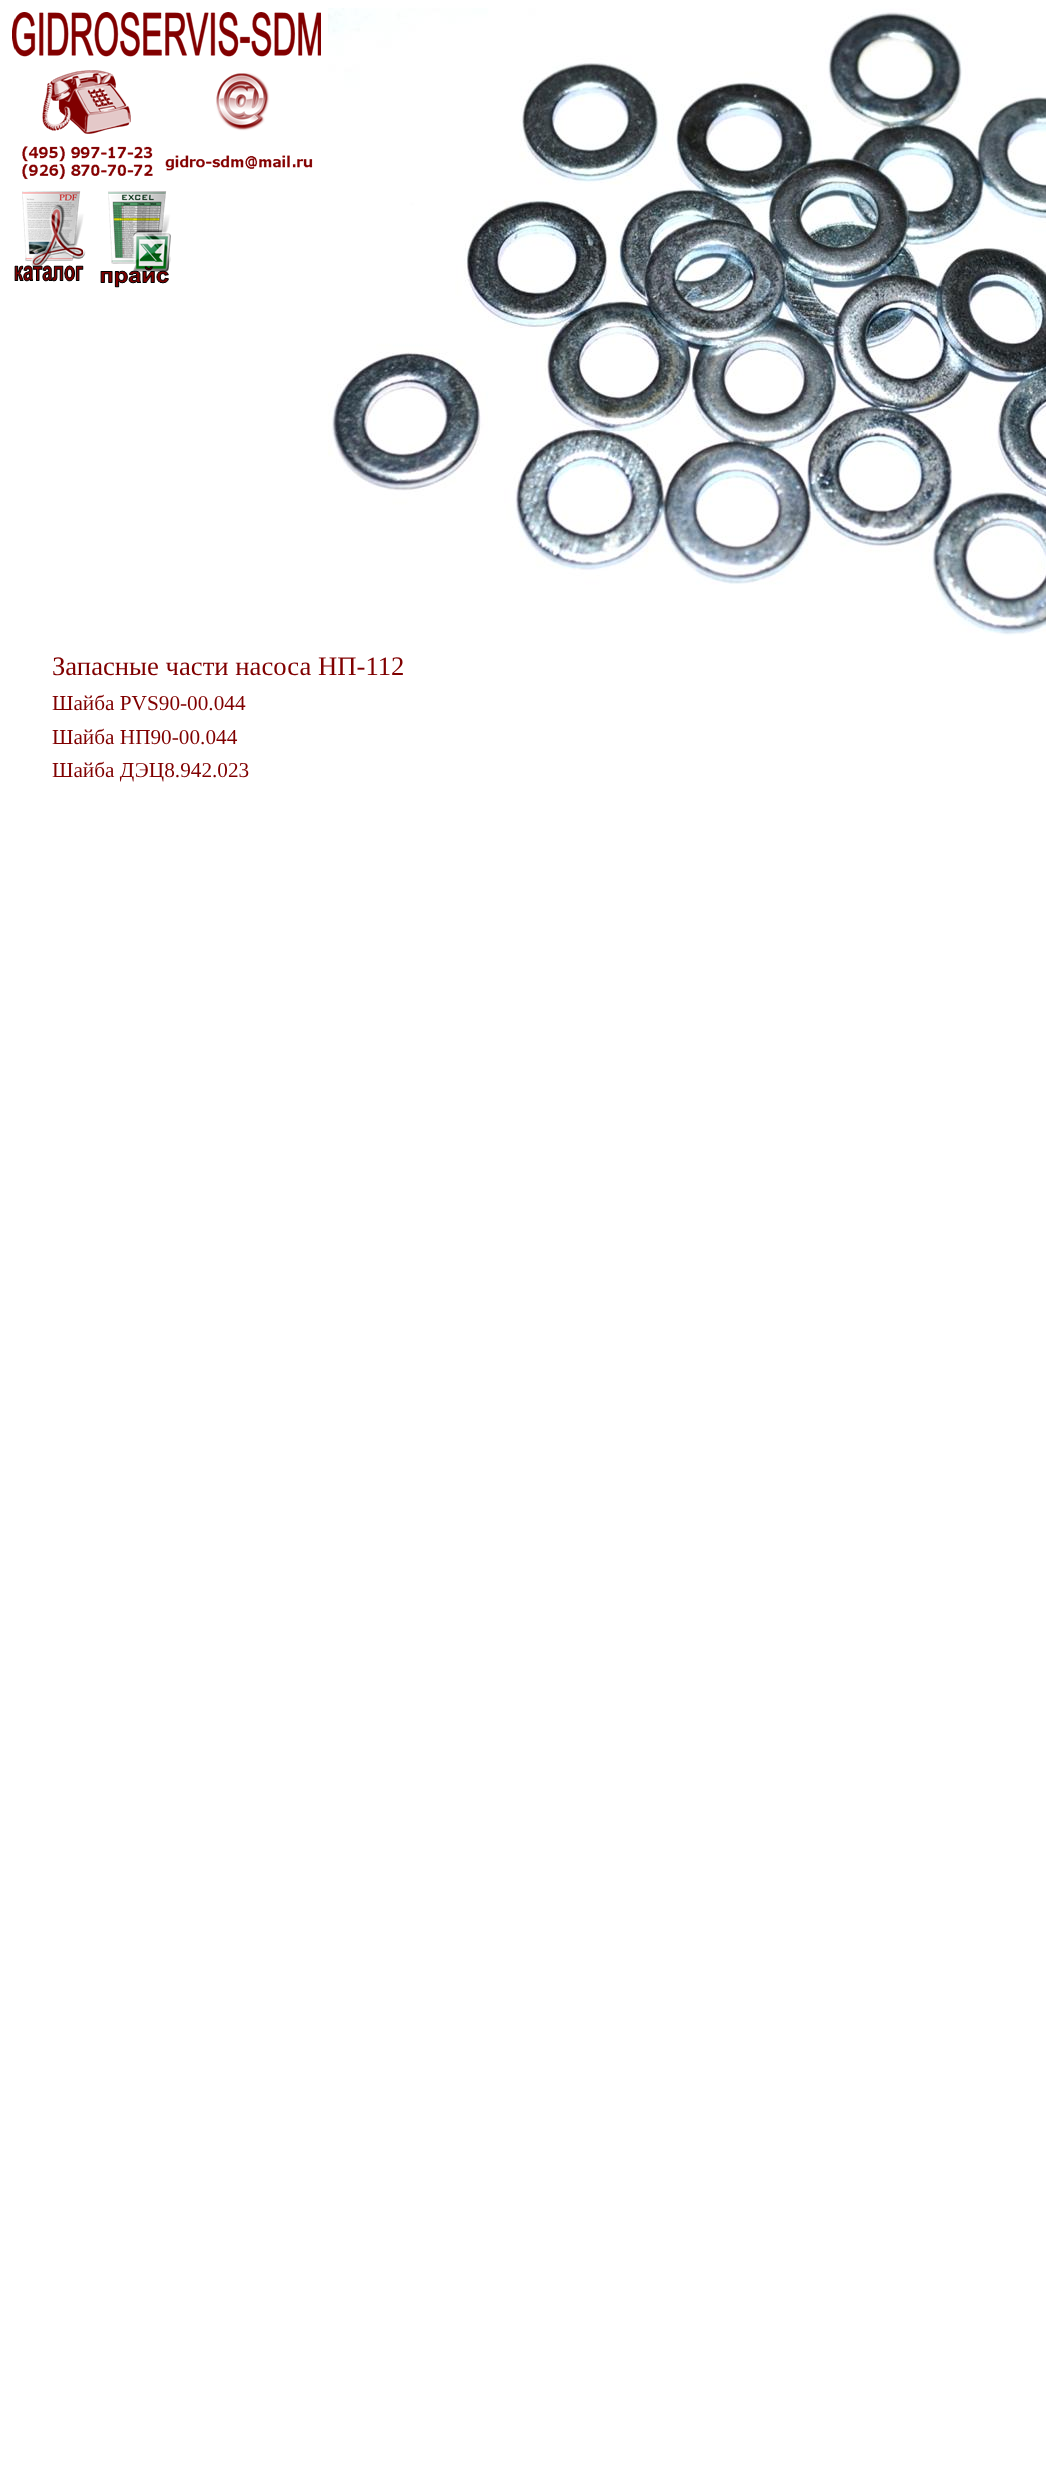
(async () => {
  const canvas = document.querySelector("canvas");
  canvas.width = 1046;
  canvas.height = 2491;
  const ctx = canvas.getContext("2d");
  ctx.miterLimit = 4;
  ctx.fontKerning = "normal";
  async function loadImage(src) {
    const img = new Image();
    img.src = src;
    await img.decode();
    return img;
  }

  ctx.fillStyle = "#ffffff";
  ctx.fillRect(0, 0, 1046, 2491);
  ctx.drawImage(await loadImage("img/1.png"), 12, 12, 309, 168);
  ctx.drawImage(await loadImage("img/2.png"), 328, 8, 718, 628);
  ctx.drawImage(await loadImage("img/3.png"), 14, 191, 157, 97);
  ctx.font = "26.7px Liberation Serif";
  ctx.fillStyle = "#800000";
  ctx.fillText("Запасные части насоса НП-112", 52, 675);
  ctx.font = "21.25px Liberation Serif";
  for (const [text, x, y] of [
    ["Шайба PVS90-00.044", 52, 710],
    ["Шайба НП90-00.044", 52, 744],
    ["Шайба ДЭЦ8.942.023", 52, 777],
  ]) {
    ctx.fillText(text, x, y);
  }
})();
